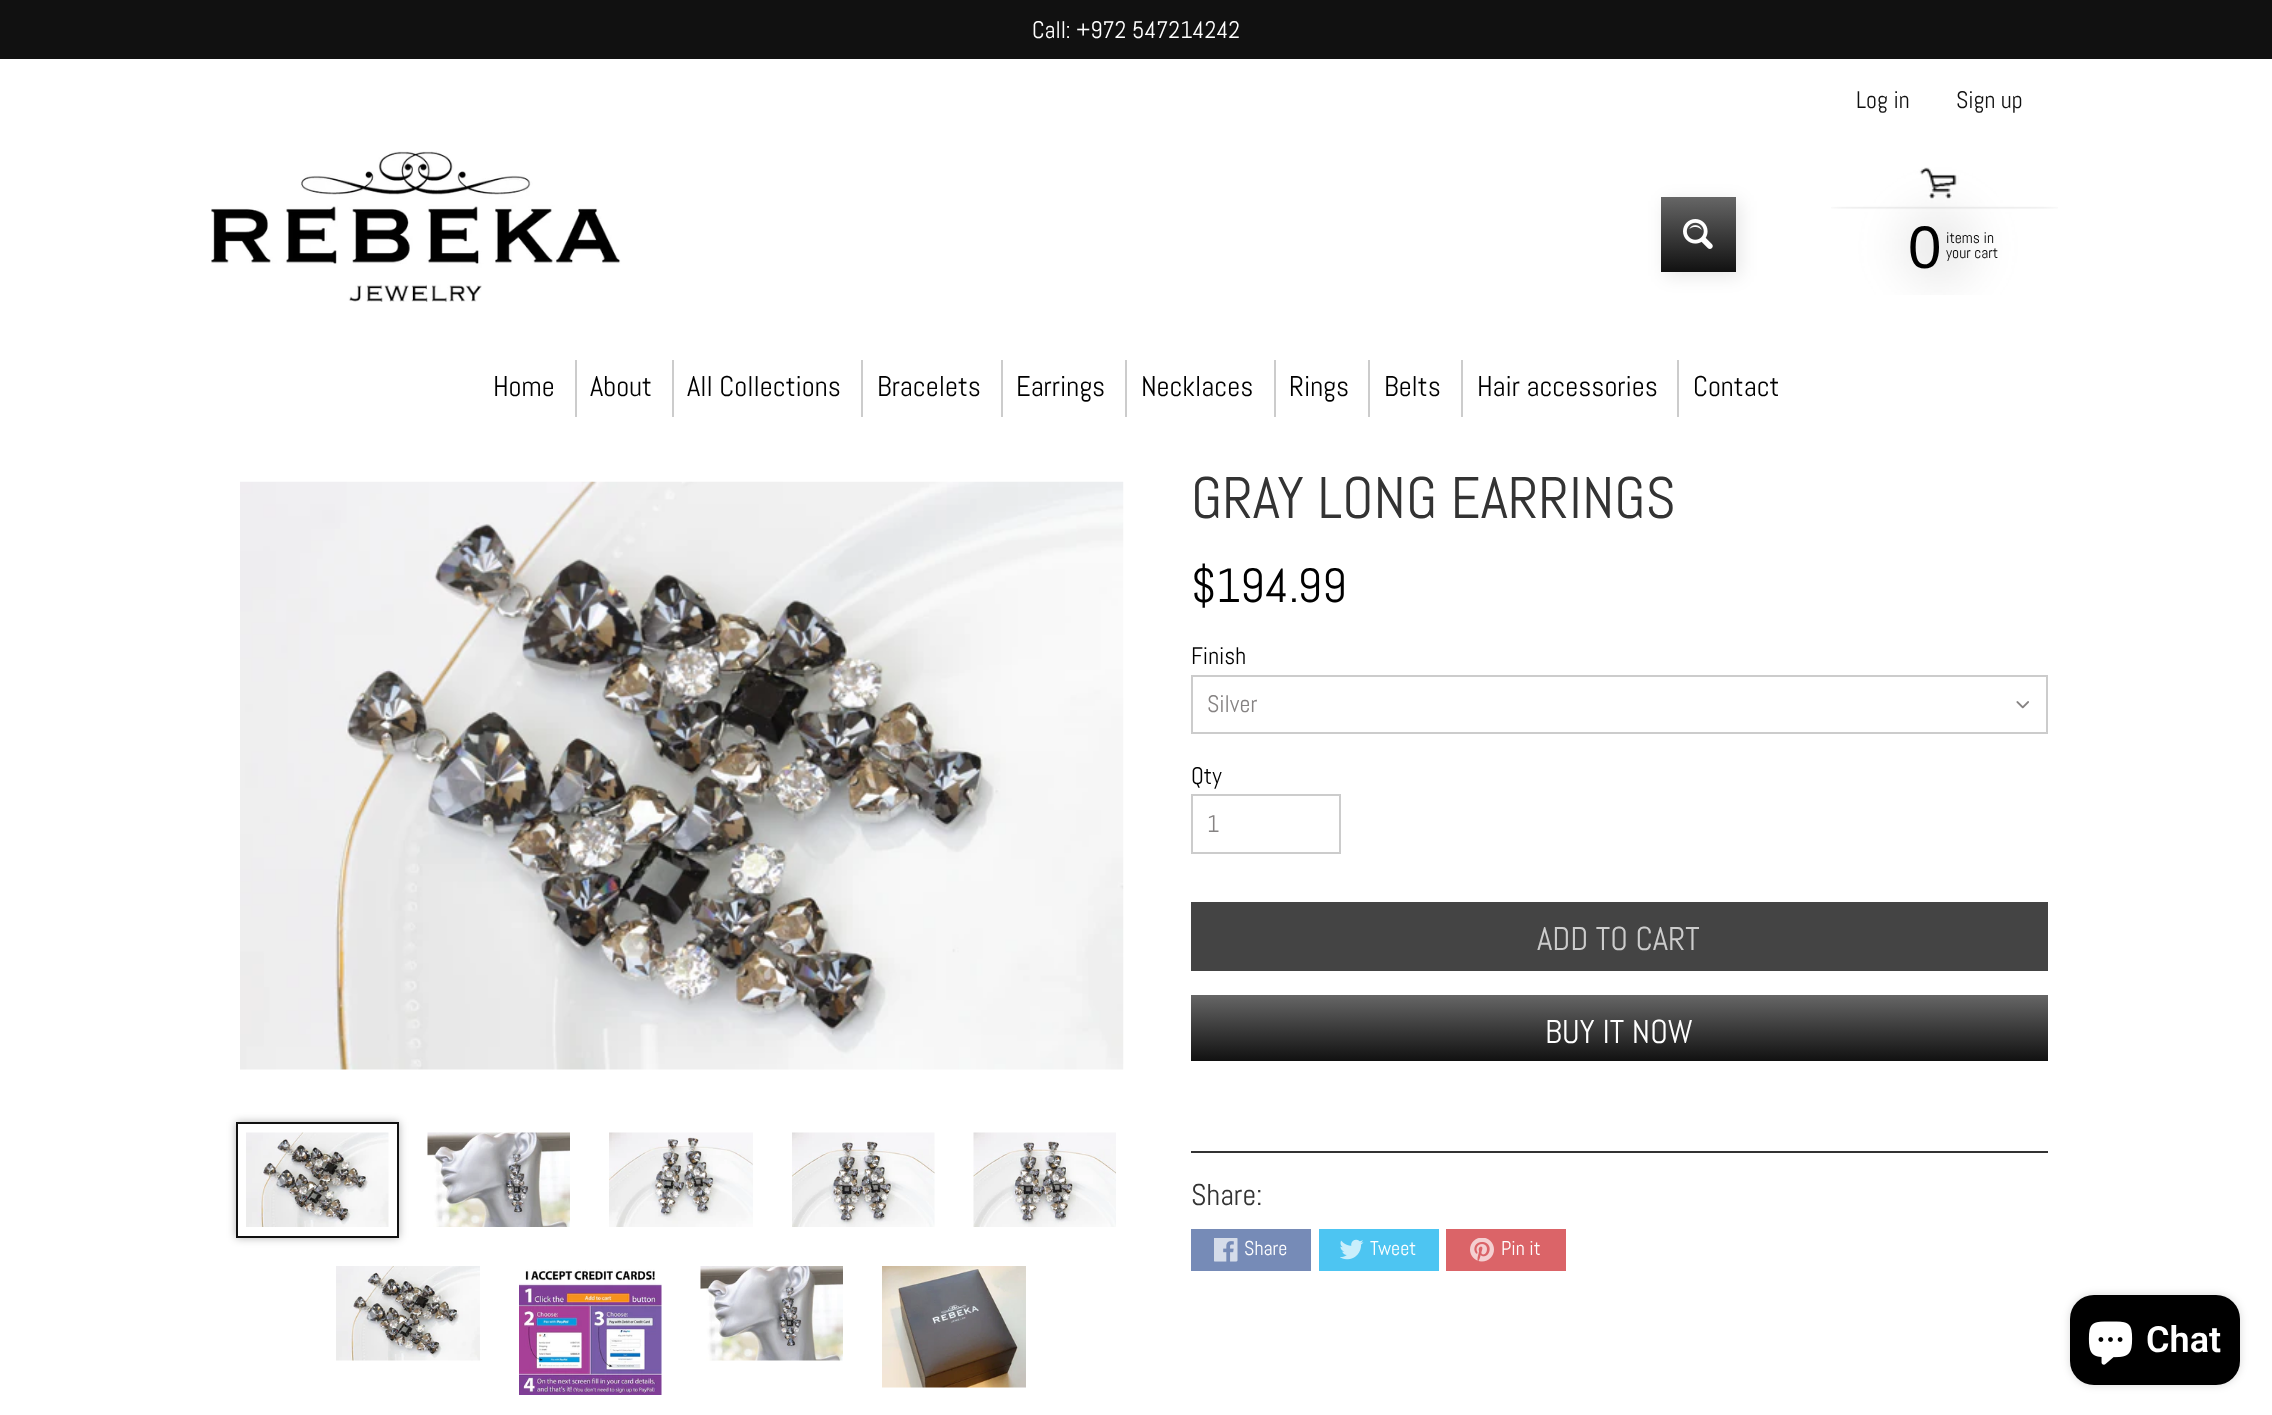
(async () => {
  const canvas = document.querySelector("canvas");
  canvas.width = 2272;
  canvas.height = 1415;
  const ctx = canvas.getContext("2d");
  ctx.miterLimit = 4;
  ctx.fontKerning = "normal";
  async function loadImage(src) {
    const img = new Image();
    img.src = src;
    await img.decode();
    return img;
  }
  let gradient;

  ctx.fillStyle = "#ffffff";
  ctx.fillRect(0, 0, 2272, 1415);
  ctx.fillStyle = "#111111";
  ctx.fillRect(0, 0, 2272, 59);
  ctx.drawImage(await loadImage("img/1.png"), 211, 151, 410, 151);
  ctx.fillStyle = "rgba(0, 0, 0, 0.1)";
  ctx.filter = "blur(9px)";
  ctx.beginPath();
  ctx.rect(1665, 201, 75, 75);
  ctx.fill();
  ctx.filter = "none";
  gradient = ctx.createLinearGradient(1698, 197, 1698, 272);
  gradient.addColorStop(0, "#666666");
  gradient.addColorStop(1, "#111111");
  ctx.fillStyle = gradient;
  ctx.fillRect(1661, 197, 75, 75);
  ctx.drawImage(await loadImage("img/2.png"), 1683, 219, 30, 30);
  ctx.drawImage(await loadImage("img/3.png"), 1831, 167, 227, 128);
  for (const [x, y, w, h, color] of [
    [575, 360, 2, 57, "#cccccc"],
    [672, 360, 2, 57, "#cccccc"],
    [861, 360, 2, 57, "#cccccc"],
    [1001, 360, 2, 57, "#cccccc"],
    [1125, 360, 2, 57, "#cccccc"],
    [1274, 360, 2, 57, "#cccccc"],
    [1368, 360, 2, 57, "#cccccc"],
    [1461, 360, 2, 57, "#cccccc"],
    [1677, 360, 2, 57, "#cccccc"],
  ]) {
    ctx.fillStyle = color;
    ctx.fillRect(x, y, w, h);
  }
  ctx.drawImage(await loadImage("img/4.png"), 240, 481, 884, 589);
  ctx.fillStyle = "rgba(0, 0, 0, 0.3)";
  ctx.filter = "blur(4.5px)";
  ctx.beginPath();
  ctx.rect(236, 1122, 163, 116);
  ctx.fill();
  ctx.filter = "none";
  ctx.fillStyle = "#ffffff";
  ctx.beginPath();
  ctx.rect(237, 1123, 161, 114);
  ctx.fill();
  ctx.strokeStyle = "#111111";
  ctx.lineWidth = 2;
  ctx.stroke();
  ctx.drawImage(await loadImage("img/5.png"), 246, 1132, 143, 95);
  ctx.drawImage(await loadImage("img/6.png"), 427, 1132, 143, 95);
  ctx.drawImage(await loadImage("img/7.png"), 609, 1132, 144, 95);
  ctx.drawImage(await loadImage("img/8.png"), 792, 1132, 143, 95);
  ctx.drawImage(await loadImage("img/9.png"), 973, 1132, 143, 95);
  ctx.drawImage(await loadImage("img/10.png"), 336, 1266, 144, 95);
  ctx.drawImage(await loadImage("img/11.png"), 519, 1269, 143, 126);
  ctx.drawImage(await loadImage("img/12.png"), 700, 1266, 143, 95);
  ctx.drawImage(await loadImage("img/13.png"), 882, 1266, 144, 122);
  ctx.drawImage(await loadImage("img/14.png"), 2016, 701, 13, 8);
  ctx.strokeStyle = "#cccccc";
  ctx.strokeRect(1192, 676, 855, 57);
  ctx.strokeRect(1192, 795, 148, 58);
  ctx.fillStyle = "#444444";
  ctx.fillRect(1191, 902, 857, 69);
  gradient = ctx.createLinearGradient(1619, 995, 1619, 1061);
  gradient.addColorStop(0, "#666666");
  gradient.addColorStop(1, "#111111");
  ctx.fillStyle = gradient;
  ctx.fillRect(1191, 995, 857, 66);
  ctx.fillStyle = "#333333";
  ctx.fillRect(1191, 1151, 857, 2);
  ctx.fillStyle = "#768bb7";
  ctx.fillRect(1191, 1229, 120, 42);
  ctx.drawImage(await loadImage("img/15.png"), 1214, 1238, 24, 24);
  ctx.fillStyle = "#4dc5f2";
  ctx.fillRect(1319, 1229, 120, 42);
  ctx.drawImage(await loadImage("img/16.png"), 1340, 1239, 24, 21);
  ctx.fillStyle = "#db6468";
  ctx.fillRect(1446, 1229, 120, 42);
  ctx.drawImage(await loadImage("img/17.png"), 1470, 1238, 24, 24);
  ctx.fillStyle = "rgba(0, 0, 0, 0.15)";
  ctx.filter = "blur(4px)";
  ctx.beginPath();
  ctx.roundRect(2070, 1295, 170, 90, 24);
  ctx.fill();
  ctx.filter = "none";
  ctx.fillStyle = "#000000";
  ctx.beginPath();
  ctx.roundRect(2070, 1295, 170, 90, 24);
  ctx.fill();
  ctx.drawImage(await loadImage("img/18.png"), 2088, 1321, 45, 44);
  ctx.font = "24px Abel";
  ctx.fillStyle = "#ffffff";
  ctx.fillText("Call: +972 547214242", 1032, 38);
  ctx.fillStyle = "#111111";
  ctx.fillText("Log in", 1856, 108);
  ctx.fillText("Sign up", 1956, 108);
  ctx.font = "60px Liberation Sans";
  ctx.fillStyle = "#000000";
  ctx.fillText("0", 1908, 268);
  ctx.font = "15.5px Abel";
  ctx.fillText("items in", 1946, 243);
  ctx.fillText("your cart", 1946, 258);
  ctx.font = "28.5px Abel";
  for (const [text, x, y] of [
    ["Home", 493, 396],
    ["About", 590, 396],
    ["All Collections", 687, 396],
    ["Bracelets", 877, 396],
    ["Earrings", 1016, 396],
    ["Necklaces", 1141, 396],
    ["Rings", 1289, 396],
    ["Belts", 1384, 396],
    ["Hair accessories", 1477, 396],
    ["Contact", 1693, 396],
  ]) {
    ctx.fillText(text, x, y);
  }
  ctx.font = "58.5px Abel";
  ctx.fillStyle = "#333333";
  ctx.fillText("GRAY LONG EARRINGS", 1191, 518);
  ctx.font = "48px Abel";
  ctx.fillStyle = "#000000";
  ctx.fillText("$194.99", 1191, 602);
  ctx.font = "24px Abel";
  ctx.fillText("Finish", 1191, 664);
  ctx.fillStyle = "#868383";
  ctx.fillText("Silver", 1207, 712);
  ctx.fillStyle = "#000000";
  ctx.fillText("Qty", 1191, 784);
  ctx.fillStyle = "#868383";
  ctx.fillText("1", 1207, 832);
  ctx.font = "33px Abel";
  ctx.fillStyle = "#cccccc";
  ctx.fillText("ADD TO CART", 1537, 950);
  ctx.fillStyle = "#ffffff";
  ctx.fillText("BUY IT NOW", 1545, 1043);
  ctx.font = "30px Abel";
  ctx.fillStyle = "#333333";
  ctx.fillText("Share:", 1191, 1205);
  ctx.font = "20px Abel";
  ctx.fillStyle = "#ffffff";
  for (const [text, x, y] of [
    ["Share", 1244, 1255],
    ["Tweet", 1370, 1255],
    ["Pin it", 1501, 1255],
  ]) {
    ctx.fillText(text, x, y);
  }
  ctx.font = "600 36px Roboto";
  ctx.fillText("Chat", 2146, 1352);
})();
